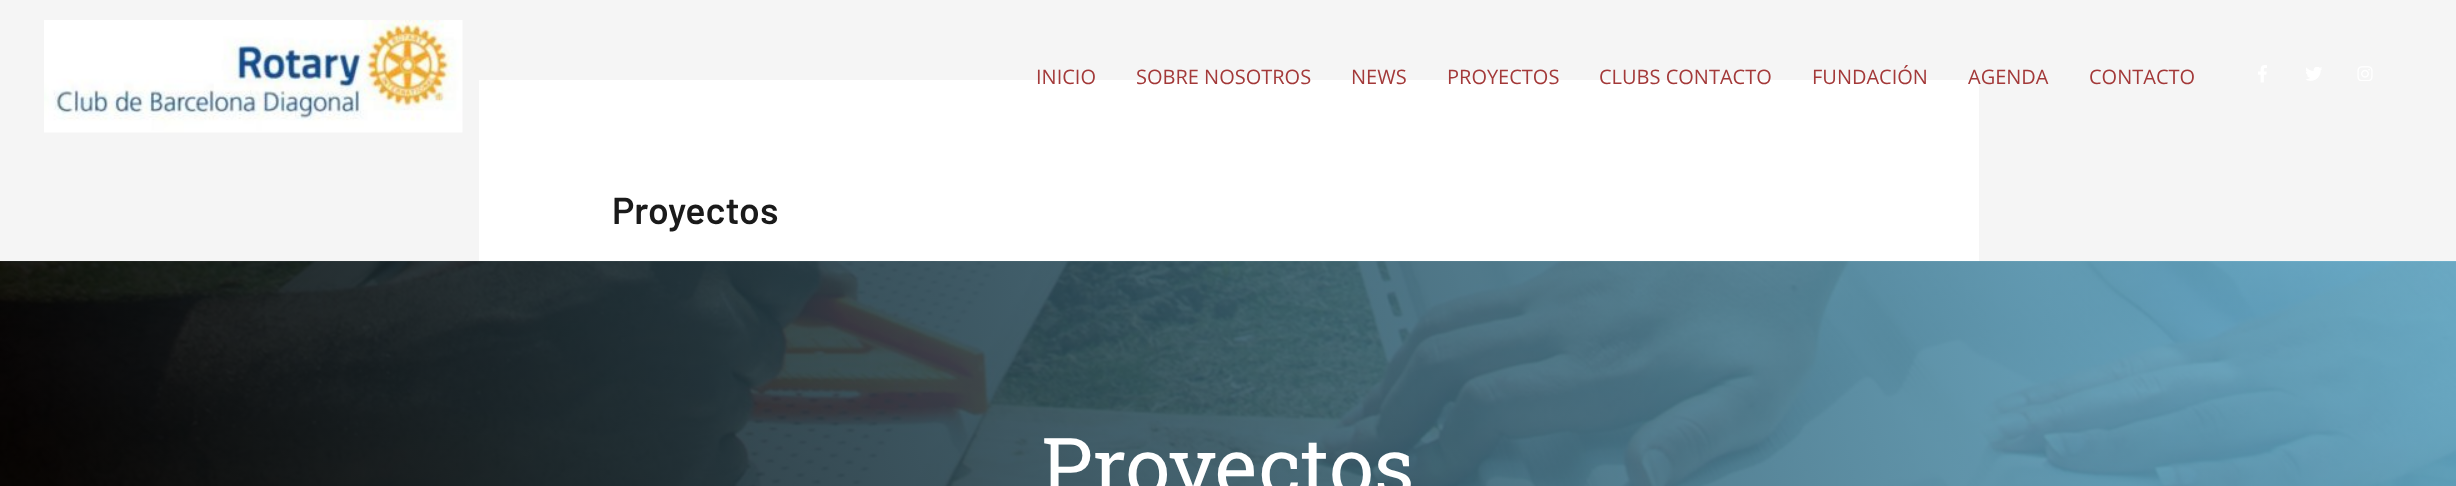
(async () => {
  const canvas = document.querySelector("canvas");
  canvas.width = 2456;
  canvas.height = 486;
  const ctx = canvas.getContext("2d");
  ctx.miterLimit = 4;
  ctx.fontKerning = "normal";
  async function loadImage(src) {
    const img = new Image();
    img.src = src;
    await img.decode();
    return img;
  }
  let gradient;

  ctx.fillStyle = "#f5f5f5";
  ctx.fillRect(0, 0, 2456, 486);
  ctx.drawImage(await loadImage("img/1.png"), 44, 20, 419, 113);
  ctx.drawImage(await loadImage("img/2.png"), 2258, 65, 9, 18);
  ctx.drawImage(await loadImage("img/3.png"), 2306, 67, 16, 14);
  ctx.drawImage(await loadImage("img/4.png"), 2357, 66, 16, 15);
  ctx.fillStyle = "#ffffff";
  ctx.fillRect(479, 80, 1500, 182);
  ctx.drawImage(await loadImage("img/5.png"), 0, 261, 2456, 225);
  gradient = ctx.createLinearGradient(2402, 112, 54, 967);
  gradient.addColorStop(0, "rgba(110, 193, 228, 0.81)");
  gradient.addColorStop(0.94, "rgba(0, 0, 0, 0.81)");
  ctx.fillStyle = gradient;
  ctx.fillRect(0, 261, 2456, 225);
  ctx.font = "20px Open Sans";
  ctx.fillStyle = "#a33939";
  for (const [text, x, y] of [
    ["INICIO", 1036, 84],
    ["SOBRE NOSOTROS", 1136, 84],
    ["NEWS", 1351, 84],
    ["PROYECTOS", 1447, 84],
    ["CLUBS CONTACTO", 1599, 84],
    ["FUNDACIÓN", 1812, 84],
    ["AGENDA", 1968, 84],
    ["CONTACTO", 2089, 84],
  ]) {
    ctx.fillText(text, x, y);
  }
  ctx.font = "600 37.5px Barlow";
  ctx.fillStyle = "#1a1a1a";
  ctx.fillText("Proyectos", 612, 224);
  ctx.font = "81.25px Roboto Slab";
  ctx.fillStyle = "#ffffff";
  ctx.fillText("Proyectos", 1041, 496);
})();
